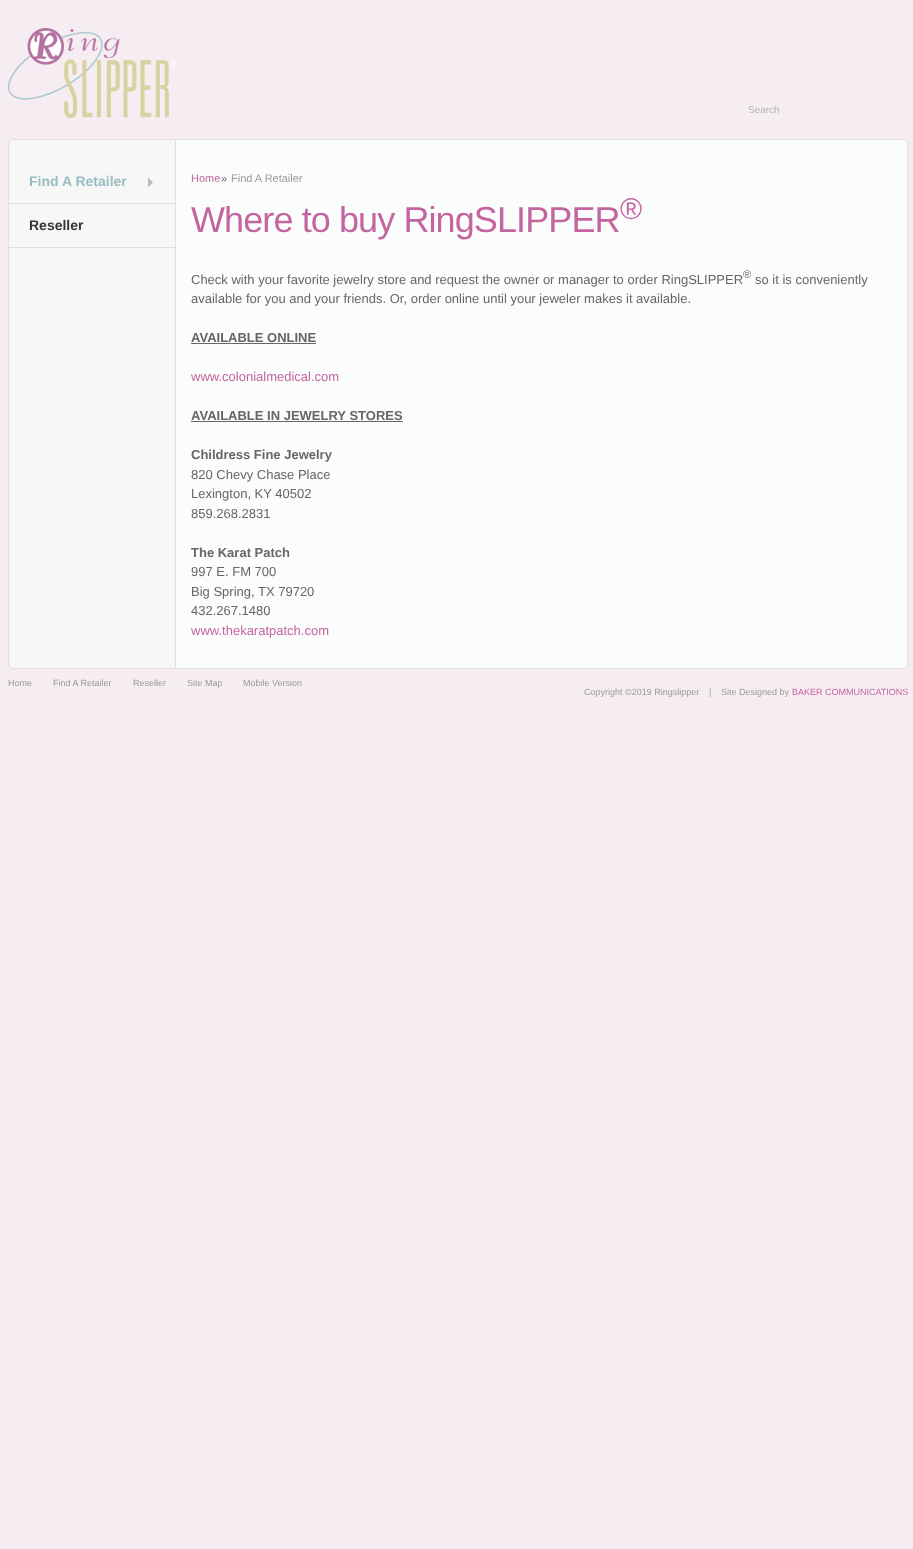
(async () => {
  const canvas = document.querySelector("canvas");
  canvas.width = 913;
  canvas.height = 1549;
  const ctx = canvas.getContext("2d");
  ctx.miterLimit = 4;
  ctx.fontKerning = "normal";
  async function loadImage(src) {
    const img = new Image();
    img.src = src;
    await img.decode();
    return img;
  }

  ctx.fillStyle = "#f6edf3";
  ctx.fillRect(0, 0, 913, 1549);
  ctx.drawImage(await loadImage("img/1.png"), 8, 28, 168, 90);
  ctx.fillStyle = "#fbfcfc";
  ctx.beginPath();
  ctx.roundRect(8, 139, 900, 530, 5);
  ctx.fill();
  ctx.drawImage(await loadImage("img/2.png"), 8, 139, 168, 530);
  ctx.beginPath();
  ctx.roundRect(8.5, 139.5, 899, 529, 4.5);
  ctx.strokeStyle = "#dddfe1";
  ctx.stroke();
  ctx.fillStyle = "#dddfe1";
  ctx.fillRect(9, 203, 166, 1);
  ctx.drawImage(await loadImage("img/3.png"), 148, 178, 5, 9);
  for (const [x, y, w, h, color] of [
    [9, 247, 166, 1, "#dddfe1"],
    [191, 343, 125, 1, "#666666"],
    [191, 421, 212, 1, "#666666"],
  ]) {
    ctx.fillStyle = color;
    ctx.fillRect(x, y, w, h);
  }
  ctx.font = "10px Liberation Sans";
  ctx.fillStyle = "#b3b3b3";
  ctx.fillText("Search", 748, 113);
  ctx.font = "bold 14px Liberation Sans";
  ctx.fillStyle = "#9abcc3";
  ctx.fillText("Find A Retailer", 29, 186);
  ctx.fillStyle = "#363636";
  ctx.fillText("Reseller", 29, 230);
  ctx.font = "11px Liberation Sans";
  ctx.fillStyle = "#c4659f";
  ctx.fillText("Home", 191, 182);
  ctx.fillStyle = "#666666";
  ctx.fillText("»", 221, 182);
  ctx.fillStyle = "#999999";
  ctx.fillText("Find A Retailer", 231, 182);
  ctx.letterSpacing = "-0.9px";
  ctx.font = "36px Liberation Sans";
  ctx.fillStyle = "#c4659f";
  ctx.fillText("Where to buy RingSLIPPER", 191, 232);
  ctx.font = "30px Liberation Sans";
  ctx.fillText("®", 620, 219);
  ctx.letterSpacing = "0px";
  ctx.font = "13px Liberation Sans";
  ctx.fillStyle = "#666666";
  ctx.fillText("Check with your favorite jewelry store and request the owner or manager to order RingSLIPPER", 191, 284);
  ctx.font = "11px Liberation Sans";
  ctx.fillText("®", 743, 278);
  ctx.font = "13px Liberation Sans";
  ctx.fillText("so it is conveniently", 755, 284);
  ctx.fillText("available for you and your friends. Or, order online until your jeweler makes it available.", 191, 303);
  ctx.font = "bold 13px Liberation Sans";
  ctx.fillText("AVAILABLE ONLINE", 191, 342);
  ctx.font = "13px Liberation Sans";
  ctx.fillStyle = "#c4659f";
  ctx.fillText("www.colonialmedical.com", 191, 381);
  ctx.font = "bold 13px Liberation Sans";
  ctx.fillStyle = "#666666";
  ctx.fillText("AVAILABLE IN JEWELRY STORES", 191, 420);
  ctx.fillText("Childress Fine Jewelry", 191, 459);
  ctx.font = "13px Liberation Sans";
  for (const [text, x, y] of [
    ["820 Chevy Chase Place", 191, 479],
    ["Lexington, KY 40502", 191, 498],
    ["859.268.2831", 191, 518],
  ]) {
    ctx.fillText(text, x, y);
  }
  ctx.font = "bold 13px Liberation Sans";
  ctx.fillText("The Karat Patch", 191, 557);
  ctx.font = "13px Liberation Sans";
  for (const [text, x, y] of [
    ["997 E. FM 700", 191, 576],
    ["Big Spring, TX 79720", 191, 596],
    ["432.267.1480", 191, 615],
  ]) {
    ctx.fillText(text, x, y);
  }
  ctx.fillStyle = "#c4659f";
  ctx.fillText("www.thekaratpatch.com", 191, 635);
  ctx.font = "9px Liberation Sans";
  ctx.fillStyle = "#999999";
  for (const [text, x, y] of [
    ["Home", 8, 686],
    ["Find A Retailer", 53, 686],
    ["Reseller", 133, 686],
    ["Site Map", 187, 686],
    ["Mobile Version", 243, 686],
    ["Copyright ©2019 Ringslipper", 584, 695],
    ["|", 709, 695],
    ["Site Designed by", 721, 695],
  ]) {
    ctx.fillText(text, x, y);
  }
  ctx.fillStyle = "#c4659f";
  ctx.fillText("BAKER COMMUNICATIONS", 792, 695);
})();
